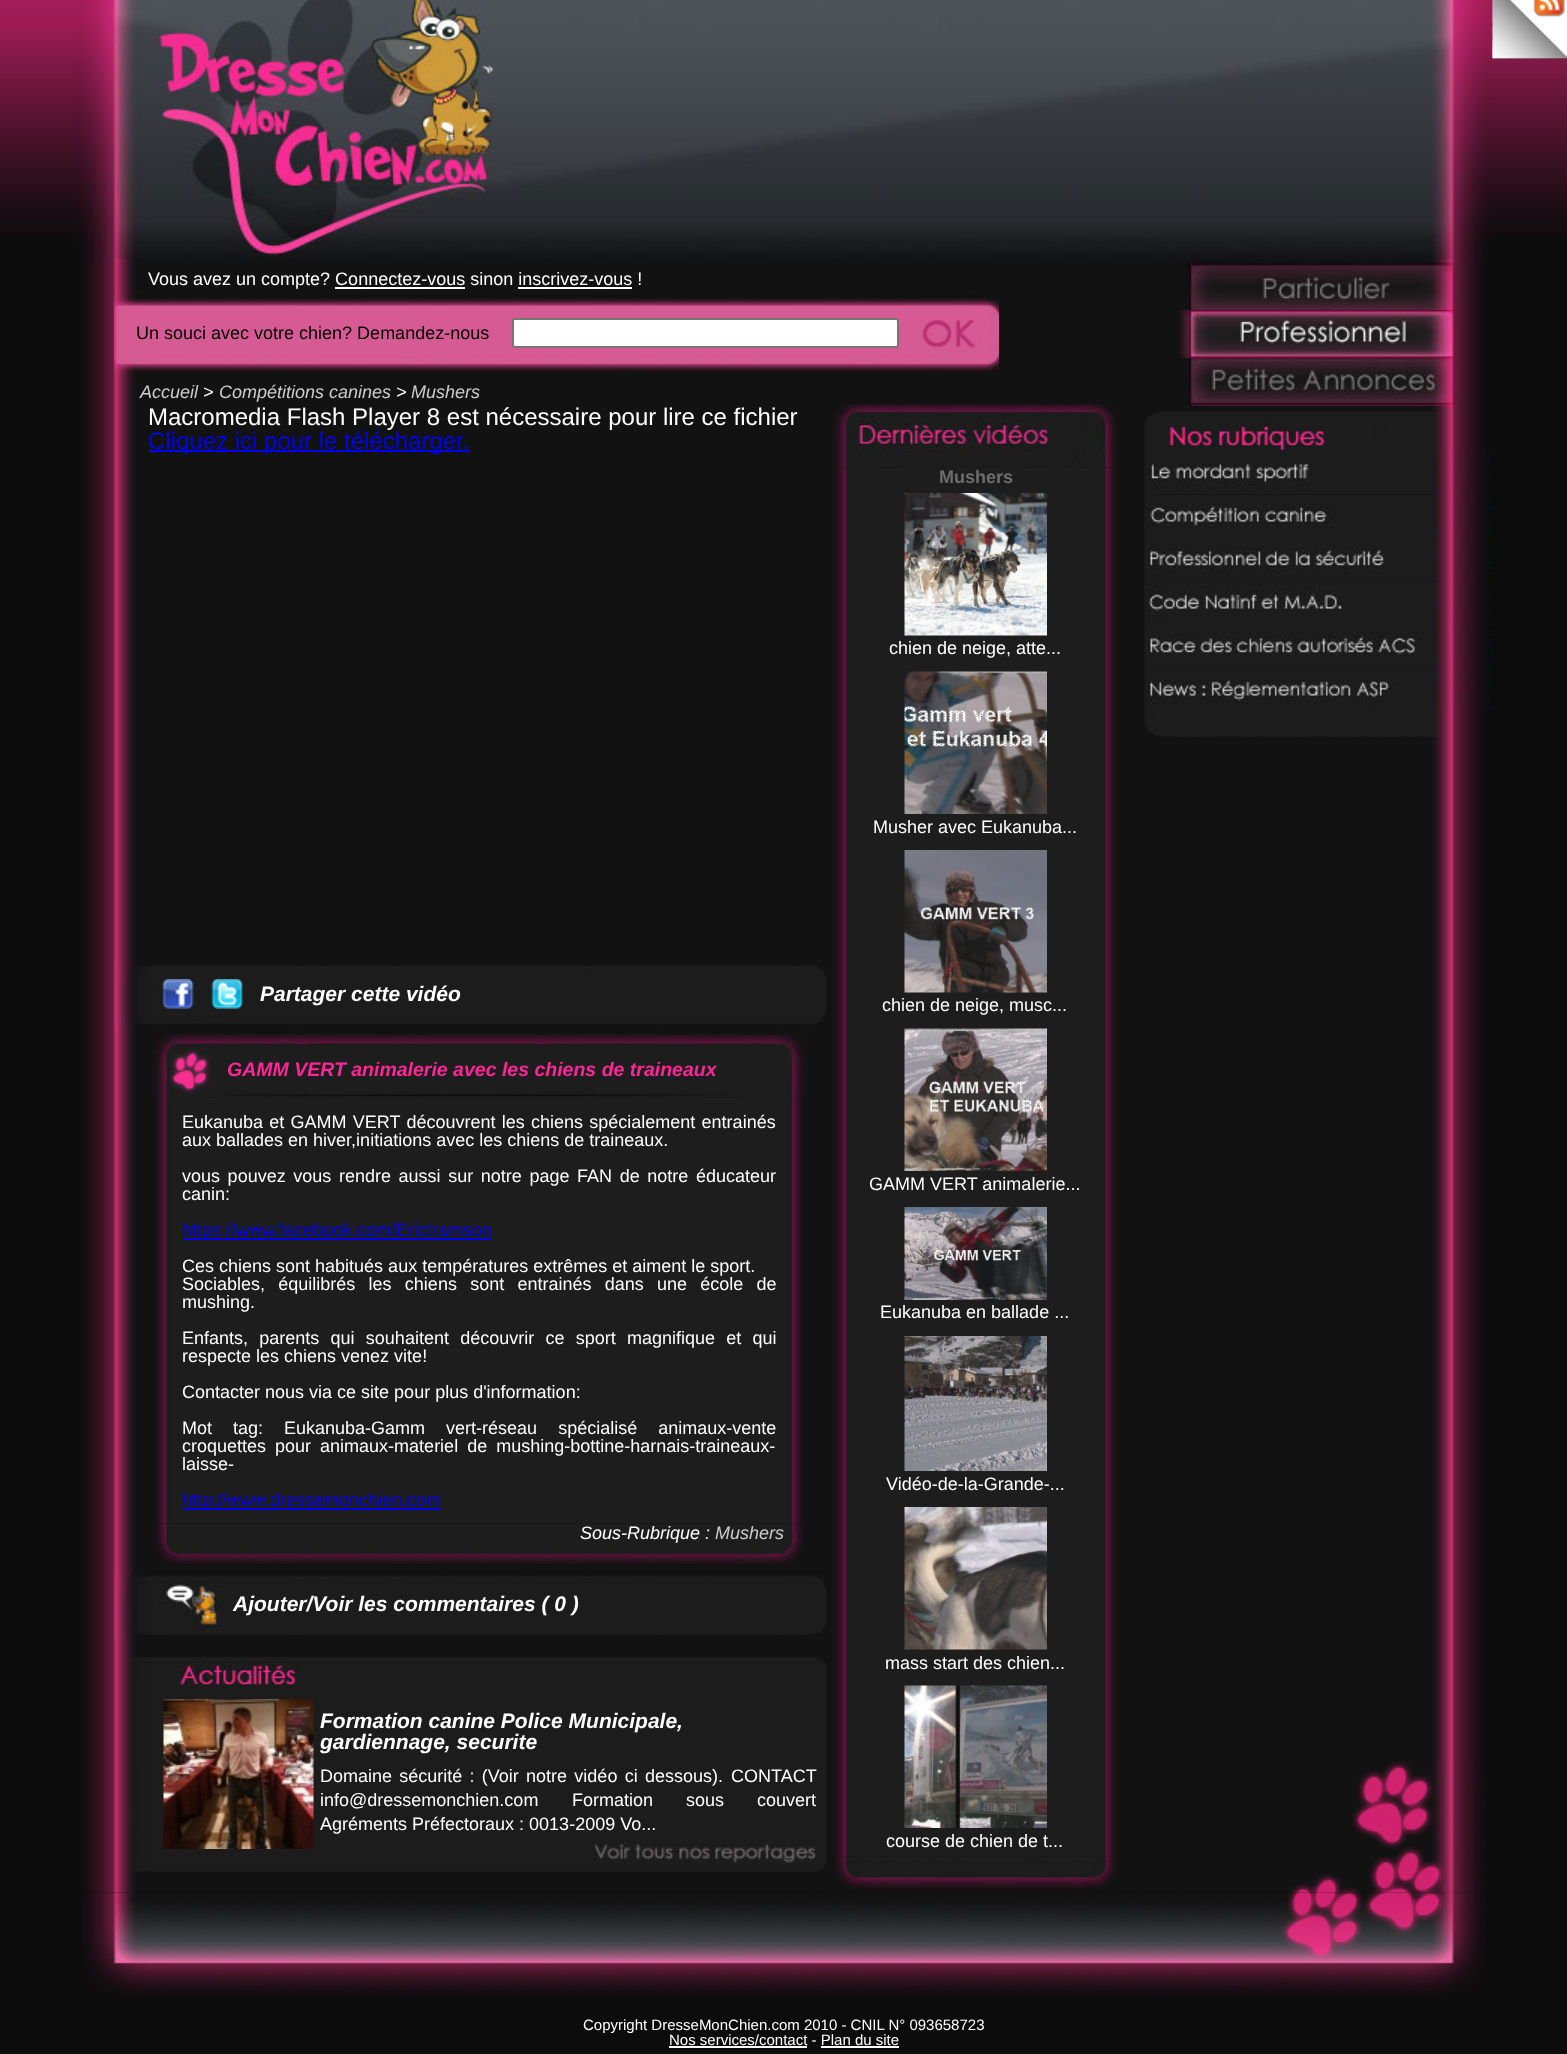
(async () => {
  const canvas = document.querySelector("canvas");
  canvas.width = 1567;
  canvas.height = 2054;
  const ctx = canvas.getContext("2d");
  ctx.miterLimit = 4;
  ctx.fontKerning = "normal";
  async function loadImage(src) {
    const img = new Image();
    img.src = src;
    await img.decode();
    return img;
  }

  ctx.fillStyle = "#0c0c0c";
  ctx.fillRect(0, 0, 1567, 2054);
  ctx.drawImage(await loadImage("img/1.png"), 0, 0, 1567, 235);
  ctx.drawImage(await loadImage("img/2.png"), 1492, 0, 75, 58);
  ctx.drawImage(await loadImage("img/3.png"), 1492, 0, 75, 60);
  ctx.drawImage(await loadImage("img/4.png"), 74, 0, 1416, 262);
  ctx.drawImage(await loadImage("img/5.png"), 82, 262, 1404, 1631);
  ctx.drawImage(await loadImage("img/6.png"), 1289, 1761, 198, 132);
  ctx.fillStyle = "#ffffff";
  ctx.fillRect(335, 287, 130, 2);
  ctx.fillRect(518, 287, 114, 2);
  ctx.drawImage(await loadImage("img/7.png"), 1186, 262, 272, 48);
  ctx.drawImage(await loadImage("img/8.png"), 1178, 310, 280, 48);
  ctx.drawImage(await loadImage("img/9.png"), 1187, 358, 274, 48);
  ctx.drawImage(await loadImage("img/10.png"), 1144, 411, 295, 40);
  ctx.drawImage(await loadImage("img/11.png"), 1144, 451, 351, 44);
  ctx.drawImage(await loadImage("img/12.png"), 1144, 495, 351, 43);
  ctx.drawImage(await loadImage("img/13.png"), 1144, 538, 351, 44);
  ctx.drawImage(await loadImage("img/14.png"), 1144, 582, 351, 43);
  ctx.drawImage(await loadImage("img/15.png"), 1144, 625, 351, 44);
  ctx.drawImage(await loadImage("img/16.png"), 1144, 669, 351, 43);
  ctx.drawImage(await loadImage("img/17.png"), 1144, 712, 295, 25);
  ctx.drawImage(await loadImage("img/18.png"), 114, 295, 885, 80);
  ctx.beginPath();
  ctx.roundRect(513, 319, 385, 28, 2);
  ctx.fill();
  ctx.strokeStyle = "#767676";
  ctx.lineWidth = 2;
  ctx.stroke();
  ctx.drawImage(await loadImage("img/19.png"), 920, 319, 64, 47);
  ctx.fillStyle = "#0000ee";
  ctx.fillRect(149, 450, 321, 2);
  ctx.drawImage(await loadImage("img/20.png"), 114, 961, 713, 66);
  ctx.drawImage(await loadImage("img/21.png"), 162, 979, 32, 30);
  ctx.drawImage(await loadImage("img/22.png"), 211, 979, 32, 30);
  ctx.drawImage(await loadImage("img/23.png"), 833, 404, 284, 64);
  ctx.drawImage(await loadImage("img/24.png"), 834, 467, 284, 1390);
  ctx.drawImage(await loadImage("img/25.png"), 904, 493, 143, 143);
  ctx.drawImage(await loadImage("img/26.png"), 904, 671, 143, 143);
  ctx.drawImage(await loadImage("img/27.png"), 904, 850, 143, 143);
  ctx.drawImage(await loadImage("img/28.png"), 904, 1028, 143, 143);
  ctx.drawImage(await loadImage("img/29.png"), 904, 1207, 143, 93);
  ctx.drawImage(await loadImage("img/30.png"), 904, 1336, 143, 135);
  ctx.drawImage(await loadImage("img/31.png"), 904, 1507, 143, 143);
  ctx.drawImage(await loadImage("img/32.png"), 904, 1685, 143, 143);
  ctx.drawImage(await loadImage("img/33.png"), 834, 1856, 284, 34);
  ctx.drawImage(await loadImage("img/34.png"), 153, 1034, 654, 64);
  ctx.drawImage(await loadImage("img/35.png"), 155, 1097, 650, 427);
  ctx.fillRect(183, 1238, 309, 2);
  ctx.fillRect(183, 1508, 258, 2);
  ctx.drawImage(await loadImage("img/36.png"), 153, 1523, 651, 41);
  ctx.drawImage(await loadImage("img/37.png"), 114, 1571, 713, 67);
  ctx.drawImage(await loadImage("img/38.png"), 130, 1657, 697, 215);
  ctx.drawImage(await loadImage("img/39.png"), 178, 1663, 121, 24);
  ctx.drawImage(await loadImage("img/40.png"), 163, 1699, 151, 150);
  ctx.drawImage(await loadImage("img/41.png"), 594, 1844, 222, 20);
  ctx.drawImage(await loadImage("img/42.png"), 82, 1892, 1404, 105);
  ctx.fillStyle = "#ffffff";
  ctx.fillRect(669, 2046, 138, 2);
  ctx.fillRect(821, 2046, 78, 2);
  ctx.font = "18px Liberation Sans";
  ctx.fillText("Vous avez un compte? Connectez-vous sinon inscrivez-vous !", 148, 285);
  ctx.fillStyle = "#000000";
  ctx.fillText("Un souci avec votre chien? Demandez-nous", 136, 339);
  ctx.font = "italic 18px Liberation Sans";
  ctx.fillStyle = "#cccccc";
  ctx.fillText("Accueil", 140, 398);
  ctx.fillStyle = "#ffffff";
  ctx.fillText(">", 203, 398);
  ctx.fillStyle = "#cccccc";
  ctx.fillText("Compétitions canines", 219, 398);
  ctx.fillStyle = "#ffffff";
  ctx.fillText(">", 396, 398);
  ctx.fillStyle = "#cccccc";
  ctx.fillText("Mushers", 411, 398);
  ctx.font = "24px Liberation Sans";
  ctx.fillStyle = "#ffffff";
  ctx.fillText("Macromedia Flash Player 8 est nécessaire pour lire ce fichier", 148, 425);
  ctx.fillStyle = "#0000ee";
  ctx.fillText("Cliquez ici pour le télécharger.", 148, 449);
  ctx.font = "italic bold 21px Liberation Sans";
  ctx.fillStyle = "#ffffff";
  ctx.fillText("Partager cette vidéo", 260, 1001);
  ctx.font = "bold 18px Liberation Sans";
  ctx.fillStyle = "#6d6d6d";
  ctx.fillText("Mushers", 939, 483);
  ctx.font = "18px Liberation Sans";
  ctx.fillStyle = "#ffffff";
  for (const [text, x, y] of [
    ["chien de neige, atte...", 889, 654],
    ["Musher avec Eukanuba...", 873, 833],
    ["chien de neige, musc...", 882, 1011],
    ["GAMM VERT animalerie...", 869, 1190],
    ["Eukanuba en ballade ...", 880, 1318],
    ["Vidéo-de-la-Grande-...", 886, 1490],
    ["mass start des chien...", 885, 1669],
    ["course de chien de t...", 886, 1847],
  ]) {
    ctx.fillText(text, x, y);
  }
  ctx.font = "italic bold 19.5px Liberation Sans";
  ctx.fillStyle = "#ff2798";
  ctx.fillText("GAMM VERT animalerie avec les chiens de traineaux", 227, 1076);
  ctx.wordSpacing = "1.25px";
  ctx.font = "18px Liberation Sans";
  ctx.fillStyle = "#ffffff";
  ctx.fillText("Eukanuba et GAMM VERT découvrent les chiens spécialement entrainés", 182, 1128);
  ctx.wordSpacing = "0px";
  ctx.fillText("aux ballades en hiver,initiations avec les chiens de traineaux.", 182, 1146);
  ctx.wordSpacing = "2.6px";
  ctx.fillText("vous pouvez vous rendre aussi sur notre page FAN de notre éducateur", 182, 1182);
  ctx.wordSpacing = "0px";
  ctx.fillText("canin:", 182, 1200);
  ctx.fillStyle = "#0000ee";
  ctx.fillText("https://www.facebook.com/Erictramson", 182, 1236);
  ctx.fillStyle = "#ffffff";
  ctx.fillText("Ces chiens sont habitués aux températures extrêmes et aiment le sport.", 182, 1272);
  ctx.wordSpacing = "8.25px";
  ctx.fillText("Sociables, équilibrés les chiens sont entrainés dans une école de", 182, 1290);
  ctx.wordSpacing = "0px";
  ctx.fillText("mushing.", 182, 1308);
  ctx.wordSpacing = "6.25px";
  ctx.fillText("Enfants, parents qui souhaitent découvrir ce sport magnifique et qui", 182, 1344);
  ctx.wordSpacing = "0px";
  ctx.fillText("respecte les chiens venez vite!", 182, 1362);
  ctx.fillText("Contacter nous via ce site pour plus d'information:", 182, 1398);
  ctx.wordSpacing = "16px";
  ctx.fillText("Mot tag: Eukanuba-Gamm vert-réseau spécialisé animaux-vente", 182, 1434);
  ctx.wordSpacing = "4px";
  ctx.fillText("croquettes pour animaux-materiel de mushing-bottine-harnais-traineaux-", 182, 1452);
  ctx.wordSpacing = "0px";
  ctx.fillText("laisse-", 182, 1470);
  ctx.fillStyle = "#0000ee";
  ctx.fillText("http://www.dressemonchien.com", 182, 1506);
  ctx.font = "italic 18px Liberation Sans";
  ctx.fillStyle = "#ffffff";
  ctx.fillText("Sous-Rubrique :", 580, 1539);
  ctx.fillStyle = "#cccccc";
  ctx.fillText("Mushers", 715, 1539);
  ctx.font = "italic bold 21px Liberation Sans";
  ctx.fillStyle = "#ffffff";
  for (const [text, x, y] of [
    ["Ajouter/Voir les commentaires ( 0 )", 233, 1611],
    ["Formation canine Police Municipale,", 320, 1728],
    ["gardiennage, securite", 320, 1749],
  ]) {
    ctx.fillText(text, x, y);
  }
  ctx.wordSpacing = "2.25px";
  ctx.font = "18px Liberation Sans";
  ctx.fillText("Domaine sécurité : (Voir notre vidéo ci dessous).", 320, 1782);
  ctx.wordSpacing = "0px";
  ctx.fillText("CONTACT", 731, 1782);
  ctx.fillText("info@dressemonchien.com", 320, 1806);
  ctx.wordSpacing = "28px";
  ctx.fillText("Formation sous couvert", 572, 1806);
  ctx.wordSpacing = "0px";
  ctx.fillText("Agréments Préfectoraux : 0013-2009 Vo...", 320, 1830);
  ctx.font = "15px Liberation Sans";
  ctx.fillText("Copyright DresseMonChien.com 2010 - CNIL N° 093658723", 583, 2030);
  ctx.fillText("Nos services/contact - Plan du site", 669, 2045);
})();
